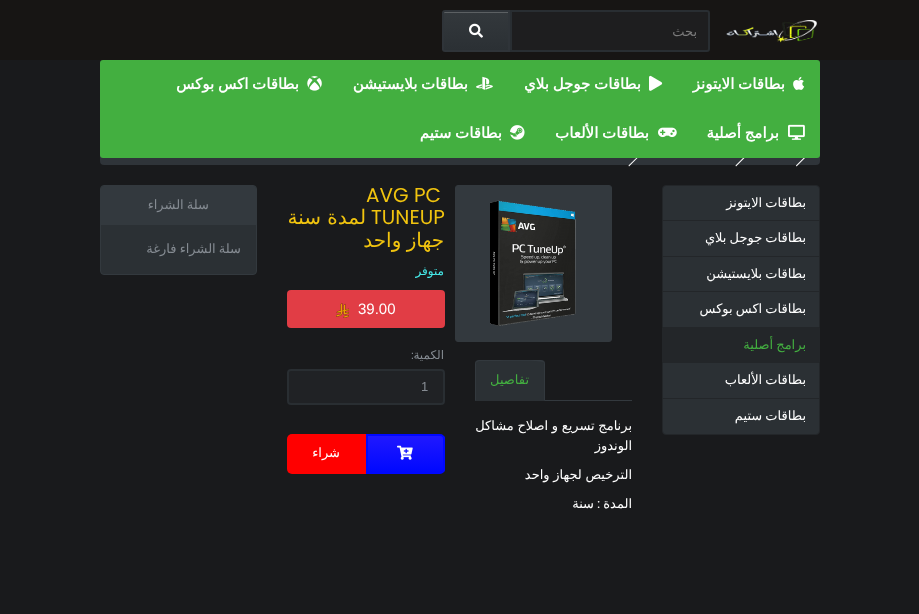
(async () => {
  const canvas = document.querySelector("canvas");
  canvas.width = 919;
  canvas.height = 614;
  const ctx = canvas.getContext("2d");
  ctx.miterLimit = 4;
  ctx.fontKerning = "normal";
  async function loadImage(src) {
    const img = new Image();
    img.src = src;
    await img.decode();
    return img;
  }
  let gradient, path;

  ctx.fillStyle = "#191a1c";
  ctx.fillRect(0, 0, 919, 614);
  ctx.fillStyle = "#171514";
  ctx.fillRect(0, 0, 919, 60);
  ctx.drawImage(await loadImage("img/1.png"), 726, 20, 91, 23);
  ctx.fillStyle = "#1e1e1f";
  ctx.beginPath();
  ctx.roundRect(511, 11, 198, 40, [0, 2, 2, 0]);
  ctx.fill();
  ctx.strokeStyle = "#292e32";
  ctx.lineWidth = 2;
  ctx.stroke();
  gradient = ctx.createLinearGradient(476, 12, 476, 50);
  gradient.addColorStop(0, "#33383c");
  gradient.addColorStop(1, "#2b3034");
  ctx.fillStyle = gradient;
  ctx.fillRect(442, 12, 66, 38);
  ctx.fillStyle = "#5c6063";
  path = new Path2D("M445 13H508V12H445C444 12 444 12 444 13V14C444 13 444 13 445 13Z");
  ctx.fill(path);
  ctx.beginPath();
  ctx.roundRect(443, 11, 66, 40, [2, 0, 0, 2]);
  ctx.strokeStyle = "#2f3439";
  ctx.stroke();
  ctx.drawImage(await loadImage("img/2.png"), 469, 23, 14, 15);
  ctx.fillStyle = "#2f3439";
  ctx.beginPath();
  ctx.roundRect(100, 130, 720, 35, 4);
  ctx.fill();
  ctx.fillStyle = "#ffffff";
  path = new Path2D("M796 165.5L814 147.5L815 148L796.5 166.5Z");
  ctx.fill(path);
  path = new Path2D("M735.5 165.5L753.5 147.5L754.5 148L736 166.5Z");
  ctx.fill(path);
  path = new Path2D("M628.5 165.5L647 147.5L647.5 148L629 166.5Z");
  ctx.fill(path);
  ctx.fillStyle = "#43af40";
  ctx.beginPath();
  ctx.roundRect(100, 60, 720, 98, 3);
  ctx.fill();
  ctx.drawImage(await loadImage("img/3.png"), 793, 76, 12, 14);
  ctx.drawImage(await loadImage("img/4.png"), 649, 75, 14, 16);
  ctx.drawImage(await loadImage("img/5.png"), 476, 76, 17, 14);
  ctx.drawImage(await loadImage("img/6.png"), 307, 76, 15, 15);
  ctx.drawImage(await loadImage("img/7.png"), 788, 124, 17, 16);
  ctx.drawImage(await loadImage("img/8.png"), 658, 127, 19, 11);
  ctx.drawImage(await loadImage("img/9.png"), 510, 125, 15, 15);
  ctx.fillStyle = "#2b3034";
  ctx.beginPath();
  ctx.roundRect(662.5, 185.5, 157, 35, [3.5, 3.5, 0, 0]);
  ctx.fill();
  ctx.strokeStyle = "#232629";
  ctx.lineWidth = 1;
  ctx.stroke();
  ctx.beginPath();
  ctx.rect(662.5, 220.5, 157, 36);
  ctx.fill();
  ctx.stroke();
  ctx.beginPath();
  ctx.rect(662.5, 256.5, 157, 35);
  ctx.fill();
  ctx.stroke();
  ctx.beginPath();
  ctx.rect(662.5, 291.5, 157, 36);
  ctx.fill();
  ctx.stroke();
  ctx.fillStyle = "#232629";
  ctx.fillRect(662, 328, 158, 34);
  ctx.fillStyle = "#2b3034";
  ctx.beginPath();
  ctx.rect(662.5, 362.5, 157, 36);
  ctx.fill();
  ctx.stroke();
  ctx.beginPath();
  ctx.roundRect(662.5, 398.5, 157, 36, [0, 0, 3.5, 3.5]);
  ctx.fill();
  ctx.stroke();
  ctx.fillStyle = "#33393e";
  ctx.beginPath();
  ctx.roundRect(455.5, 185.5, 156, 156, 2.5);
  ctx.fill();
  ctx.strokeStyle = "#33393e";
  ctx.stroke();
  ctx.drawImage(await loadImage("img/10.png"), 490, 200, 86, 126);
  ctx.fillRect(545, 400, 87, 1);
  ctx.fillStyle = "#2b3034";
  ctx.beginPath();
  ctx.roundRect(475, 360, 70, 41, [4, 4, 0, 0]);
  ctx.fill();
  ctx.fillStyle = "#33393e";
  path = new Path2D("M479 360L476 361L477 362L479 361H489C495 361 541 360 543 362L544 361L541 360Z");
  ctx.fill(path);
  path = new Path2D("M545 401V364C545 363 544.5 362 544 361L543 362C544 362 544 363 544 364V400Z");
  ctx.fill(path);
  path = new Path2D("M475 401L476 400V364C476 363 476 362 477 362L476 361C475.5 362 475 363 475 364Z");
  ctx.fill(path);
  ctx.fillStyle = "#e13d45";
  ctx.beginPath();
  ctx.roundRect(287, 290, 158, 38, 4);
  ctx.fill();
  ctx.drawImage(await loadImage("img/11.png"), 336, 303, 13, 15);
  ctx.fillStyle = "#202225";
  ctx.beginPath();
  ctx.roundRect(288, 370, 156, 34, 3);
  ctx.fill();
  ctx.strokeStyle = "#292e32";
  ctx.lineWidth = 2;
  ctx.stroke();
  ctx.save();
  ctx.beginPath();
  ctx.roundRect(366, 434, 79, 40, [0, 5, 5, 0]);
  ctx.clip();
  gradient = ctx.createLinearGradient(406, 436, 406, 472);
  gradient.addColorStop(0, "#2018ff");
  gradient.addColorStop(1, "#0008ff");
  ctx.fillStyle = gradient;
  ctx.fillRect(368, 436, 77, 36);
  ctx.restore();
  ctx.beginPath();
  ctx.roundRect(367, 435, 77, 38, [0, 4, 4, 0]);
  ctx.strokeStyle = "#0008ff";
  ctx.stroke();
  ctx.drawImage(await loadImage("img/12.png"), 397, 445, 16, 15);
  ctx.fillStyle = "#ff0000";
  ctx.beginPath();
  ctx.roundRect(287, 434, 79, 40, [5, 0, 0, 5]);
  ctx.fill();
  ctx.fillStyle = "#2b3034";
  ctx.beginPath();
  ctx.roundRect(100.5, 185.5, 156, 89, 3.5);
  ctx.fill();
  ctx.strokeStyle = "#33393e";
  ctx.lineWidth = 1;
  ctx.stroke();
  ctx.fillStyle = "#33393e";
  ctx.beginPath();
  ctx.roundRect(101, 186, 155, 39, [3, 3, 0, 0]);
  ctx.fill();
  ctx.direction = "rtl";
  ctx.font = "13px DejaVu Sans";
  ctx.fillStyle = "#7b7b7b";
  ctx.fillText("بحث", 697, 36);
  ctx.wordSpacing = "-1px";
  ctx.font = "bold 15px DejaVu Sans";
  ctx.fillStyle = "#ffffff";
  for (const [text, x, y] of [
    ["بطاقات الايتونز", 785, 89],
    ["بطاقات جوجل بلاي", 641, 89],
    ["بطاقات بلايستيشن", 468, 89],
    ["بطاقات اكس بوكس", 299, 89],
    ["برامج أصلية", 779, 138],
    ["بطاقات الألعاب", 649, 138],
    ["بطاقات ستيم", 502, 138],
  ]) {
    ctx.fillText(text, x, y);
  }
  ctx.font = "13px DejaVu Sans";
  for (const [text, x, y] of [
    ["بطاقات الايتونز", 806, 207],
    ["بطاقات جوجل بلاي", 806, 242],
    ["بطاقات بلايستيشن", 806, 278],
    ["بطاقات اكس بوكس", 806, 313],
  ]) {
    ctx.fillText(text, x, y);
  }
  ctx.fillStyle = "#43af40";
  ctx.fillText("برامج أصلية", 806, 349);
  ctx.fillStyle = "#ffffff";
  ctx.fillText("بطاقات الألعاب", 806, 384);
  ctx.fillText("بطاقات ستيم", 806, 420);
  ctx.wordSpacing = "0px";
  ctx.fillStyle = "#43af40";
  ctx.fillText("تفاصيل", 529, 384);
  ctx.wordSpacing = "-0.5px";
  ctx.fillStyle = "#ffffff";
  ctx.fillText("برنامج تسريع و اصلاح مشاكل", 632, 430);
  ctx.wordSpacing = "0px";
  ctx.fillText("الوندوز", 632, 450);
  ctx.wordSpacing = "-0.5px";
  ctx.fillText("الترخيص لجهاز واحد", 632, 479);
  ctx.wordSpacing = "0px";
  ctx.fillText("المدة", 632, 508);
  ctx.font = "13px Poppins";
  ctx.fillText(":", 600, 508);
  ctx.font = "13px DejaVu Sans";
  ctx.fillText("سنة", 594, 508);
  ctx.direction = "ltr";
  ctx.font = "20px Poppins";
  ctx.fillStyle = "#f1c40f";
  ctx.fillText("AVG PC", 366, 202);
  ctx.fillText("TUNEUP", 371, 224);
  ctx.direction = "rtl";
  ctx.font = "20px DejaVu Sans";
  ctx.fillText("لمدة سنة", 366, 224);
  ctx.wordSpacing = "-1px";
  ctx.fillText("جهاز واحد", 444, 247);
  ctx.wordSpacing = "0px";
  ctx.font = "12px DejaVu Sans";
  ctx.fillStyle = "#46eae9";
  ctx.fillText("متوفر", 444, 275);
  ctx.direction = "ltr";
  ctx.font = "15px Liberation Sans";
  ctx.fillStyle = "#ffffff";
  ctx.fillText("39.00", 358, 314);
  ctx.direction = "rtl";
  ctx.font = "12px DejaVu Sans";
  ctx.fillStyle = "#858b92";
  ctx.fillText("الكمية", 444, 359);
  ctx.font = "12px Liberation Sans";
  ctx.fillText(":", 414, 359);
  ctx.direction = "ltr";
  ctx.font = "13px Liberation Sans";
  ctx.fillText("1", 421, 391);
  ctx.direction = "rtl";
  ctx.font = "13px DejaVu Sans";
  ctx.fillStyle = "#ffffff";
  ctx.fillText("شراء", 340, 457);
  ctx.wordSpacing = "-1px";
  ctx.fillStyle = "#858b92";
  ctx.fillText("سلة الشراء", 209, 209);
  ctx.fillText("سلة الشراء فارغة", 241, 253);
})();
